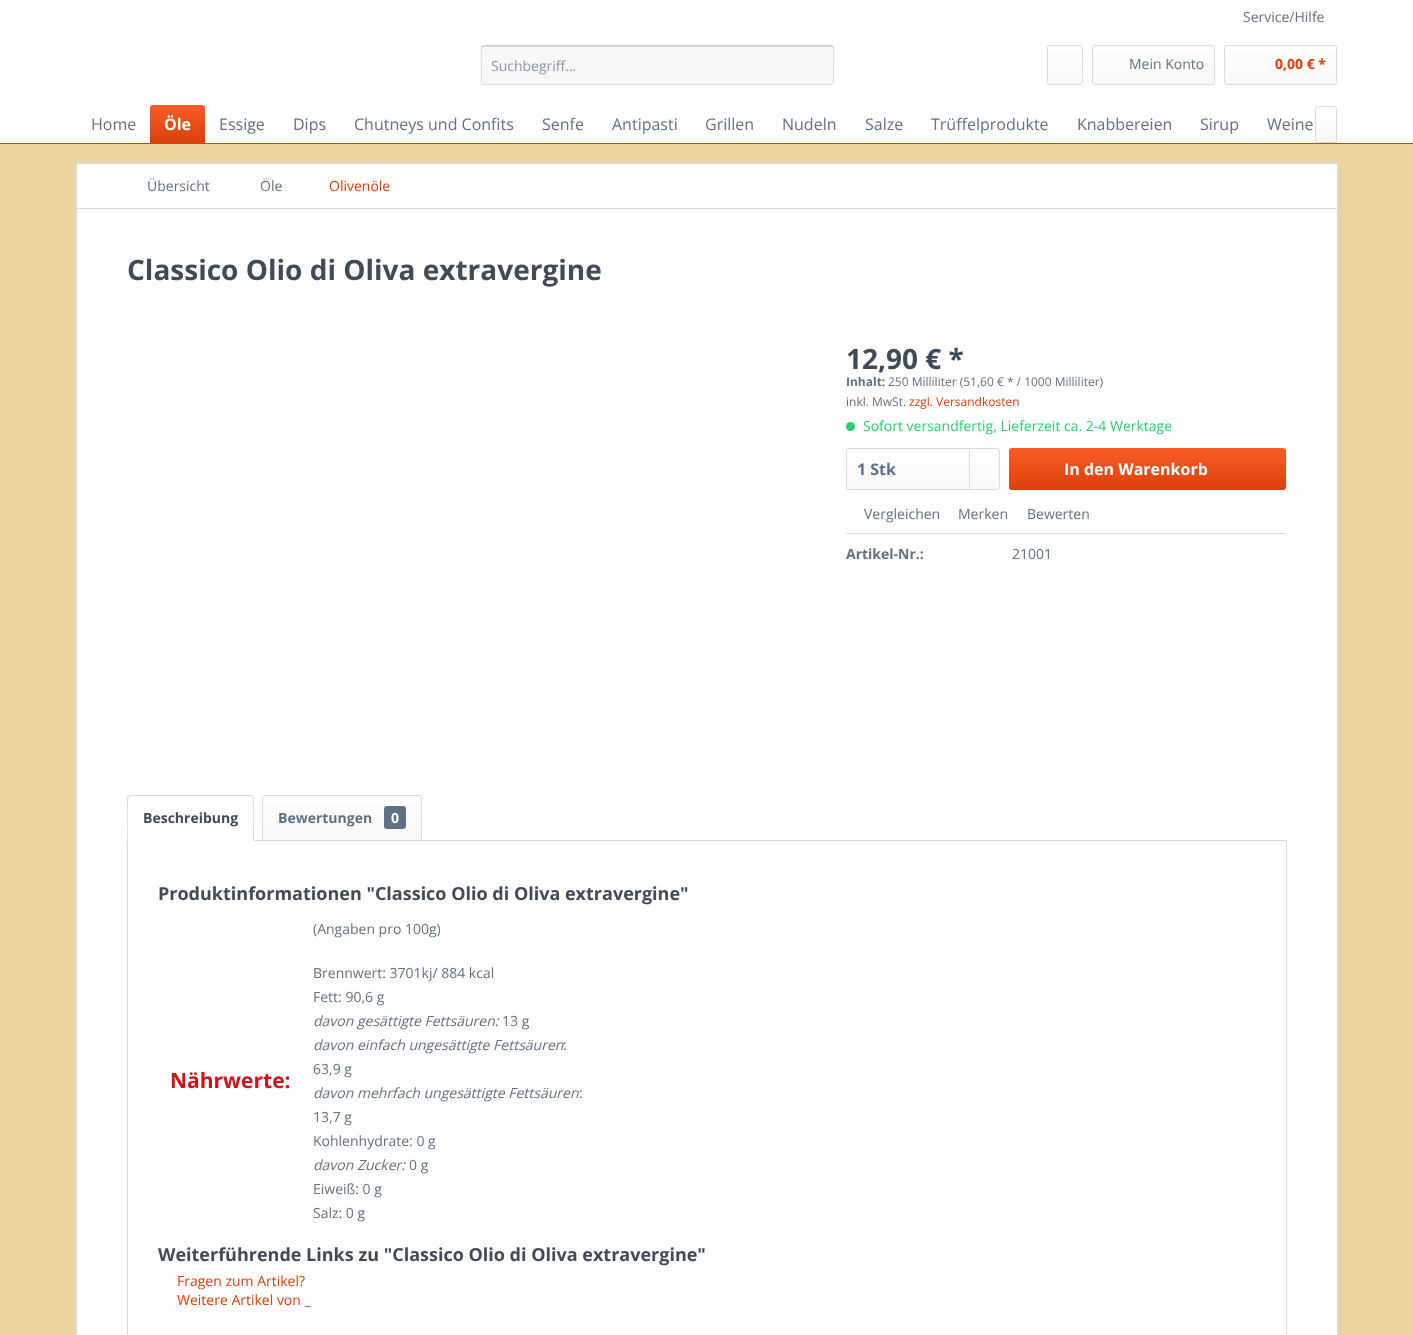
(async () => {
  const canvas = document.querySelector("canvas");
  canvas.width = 1413;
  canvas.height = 1335;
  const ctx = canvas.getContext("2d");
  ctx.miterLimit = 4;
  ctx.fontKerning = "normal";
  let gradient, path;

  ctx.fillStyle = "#ead59c";
  ctx.fillRect(0, 0, 1413, 1335);
  ctx.fillStyle = "#ffffff";
  ctx.fillRect(0, 0, 1413, 143);
  ctx.fillStyle = "#f8f8fa";
  ctx.beginPath();
  ctx.roundRect(481, 45, 353, 40, 3);
  ctx.fill();
  ctx.fillStyle = "#dadae5";
  path = new Path2D("M484 47H831C832 47 833 48 833 49C833 48 833 46 831 46H484C482 46 482 48 482 49C482 48 483 47 484 47Z");
  ctx.fill(path);
  path = new Path2D("M482 46L484 45.5H831L833 46");
  ctx.strokeStyle = "#cbcbdb";
  ctx.stroke(path);
  path = new Path2D("M833 46C834.5 48 833.5 67 833.5 70.5V76.5C833.5 78 835 84.5 831 84.5H484C480 84.5 481.5 78 481.5 76.5V70.5C481.5 67 480.5 48 482 46");
  ctx.strokeStyle = "#dadae5";
  ctx.stroke(path);
  gradient = ctx.createLinearGradient(1065, 46, 1065, 84);
  gradient.addColorStop(0, "#ffffff");
  gradient.addColorStop(1, "#f8f8fa");
  ctx.fillStyle = gradient;
  ctx.beginPath();
  ctx.roundRect(1048, 46, 34, 38, 2);
  ctx.fill();
  ctx.beginPath();
  ctx.roundRect(1047.5, 45.5, 35, 39, 2.5);
  ctx.stroke();
  gradient = ctx.createLinearGradient(1154, 46, 1154, 84);
  gradient.addColorStop(0, "#ffffff");
  gradient.addColorStop(1, "#f8f8fa");
  ctx.fillStyle = gradient;
  ctx.beginPath();
  ctx.roundRect(1093, 46, 121, 38, 2);
  ctx.fill();
  ctx.beginPath();
  ctx.roundRect(1092.5, 45.5, 122, 39, 2.5);
  ctx.stroke();
  gradient = ctx.createLinearGradient(1281, 46, 1281, 84);
  gradient.addColorStop(0, "#ffffff");
  gradient.addColorStop(1, "#f8f8fa");
  ctx.fillStyle = gradient;
  ctx.beginPath();
  ctx.roundRect(1225, 46, 111, 38, 2);
  ctx.fill();
  ctx.beginPath();
  ctx.roundRect(1224.5, 45.5, 112, 39, 2.5);
  ctx.stroke();
  ctx.fillStyle = "#d9400b";
  ctx.fillRect(0, 143, 1413, 1);
  gradient = ctx.createLinearGradient(178, 105, 178, 143);
  gradient.addColorStop(0, "#fa5d27");
  gradient.addColorStop(1, "#d9400b");
  ctx.fillStyle = gradient;
  ctx.beginPath();
  ctx.roundRect(150, 105, 55, 38, [3, 3, 0, 0]);
  ctx.fill();
  gradient = ctx.createLinearGradient(1326, 107, 1326, 142);
  gradient.addColorStop(0, "#ffffff");
  gradient.addColorStop(1, "#f8f8fa");
  ctx.fillStyle = gradient;
  ctx.beginPath();
  ctx.roundRect(1316, 107, 20, 35, 2);
  ctx.fill();
  ctx.beginPath();
  ctx.roundRect(1315.5, 106.5, 21, 36, 2.5);
  ctx.stroke();
  ctx.fillStyle = "#dadae5";
  ctx.filter = "blur(2px)";
  ctx.beginPath();
  ctx.rect(76, 163, 1262, 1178);
  ctx.fill();
  ctx.filter = "none";
  ctx.fillStyle = "#ffffff";
  ctx.fillRect(77, 164, 1260, 1171);
  ctx.fillStyle = "#dadae5";
  ctx.fillRect(77, 208, 1260, 1);
  ctx.fillStyle = "#2ecc71";
  ctx.beginPath();
  ctx.arc(850.5, 426.5, 4.5, 0, Math.PI * 2);
  ctx.fill();
  gradient = ctx.createLinearGradient(923, 449, 923, 489);
  gradient.addColorStop(0, "#ffffff");
  gradient.addColorStop(1, "#f8f8fa");
  ctx.fillStyle = gradient;
  ctx.beginPath();
  ctx.roundRect(847, 449, 152, 40, 2);
  ctx.fill();
  ctx.beginPath();
  ctx.roundRect(846.5, 448.5, 153, 41, 2.5);
  ctx.stroke();
  ctx.fillStyle = "#dadae5";
  ctx.fillRect(969, 449, 1, 40);
  gradient = ctx.createLinearGradient(1148, 448, 1148, 490);
  gradient.addColorStop(0, "#fa5d27");
  gradient.addColorStop(1, "#d9400b");
  ctx.fillStyle = gradient;
  ctx.beginPath();
  ctx.roundRect(1009, 448, 277, 42, 3);
  ctx.fill();
  ctx.fillStyle = "#dadae5";
  ctx.fillRect(846, 533, 440, 1);
  ctx.strokeRect(127.5, 840.5, 1159, 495);
  ctx.fillStyle = "#ffffff";
  ctx.beginPath();
  ctx.roundRect(127, 795, 127, 46, [3, 3, 0, 0]);
  ctx.fill();
  ctx.fillStyle = "#dadae5";
  path = new Path2D("M130 795L128 796L129 797L130 796H251L252 797L253 796L251 795Z");
  ctx.fill(path);
  path = new Path2D("M254 841C254 836 255 798 253 796L252 797C254 798 253 835 253 840Z");
  ctx.fill(path);
  ctx.fillStyle = "#ffffff";
  path = new Path2D("M254 841L253 840H128L127 841Z");
  ctx.fill(path);
  ctx.fillStyle = "#dadae5";
  path = new Path2D("M127 841L128 840C128 835 127 798 129 797L128 796L127 798Z");
  ctx.fill(path);
  gradient = ctx.createLinearGradient(342, 796, 342, 840);
  gradient.addColorStop(0, "#ffffff");
  gradient.addColorStop(1, "#f8f8fa");
  ctx.fillStyle = gradient;
  ctx.beginPath();
  ctx.roundRect(263, 796, 158, 44, [2, 2, 0, 0]);
  ctx.fill();
  ctx.beginPath();
  ctx.roundRect(262.5, 795.5, 159, 45, [2.5, 2.5, 0, 0]);
  ctx.stroke();
  ctx.fillStyle = "#5f7285";
  ctx.beginPath();
  ctx.roundRect(384, 806, 22, 23, 3);
  ctx.fill();
  ctx.font = "14px Open Sans";
  ctx.fillText("Service/Hilfe", 1243, 22);
  ctx.fillStyle = "#8798a9";
  ctx.fillText("Suchbegriff...", 491, 71);
  ctx.fillStyle = "#5f7285";
  ctx.fillText("Mein Konto", 1129, 69);
  ctx.font = "bold 14px Open Sans";
  ctx.fillStyle = "#d9400b";
  ctx.fillText("0,00 € *", 1275, 69);
  ctx.font = "16px Open Sans";
  ctx.fillStyle = "#5f7285";
  ctx.fillText("Home", 91, 130);
  ctx.font = "bold 16px Open Sans";
  ctx.fillStyle = "#ffffff";
  ctx.fillText("Öle", 164, 130);
  ctx.font = "16px Open Sans";
  ctx.fillStyle = "#5f7285";
  for (const [text, x, y] of [
    ["Essige", 219, 130],
    ["Dips", 293, 130],
    ["Chutneys und Confits", 354, 130],
    ["Senfe", 542, 130],
    ["Antipasti", 612, 130],
    ["Grillen", 705, 130],
    ["Nudeln", 782, 130],
    ["Salze", 865, 130],
    ["Trüffelprodukte", 931, 130],
    ["Knabbereien", 1077, 130],
    ["Sirup", 1200, 130],
    ["Weine", 1267, 130],
  ]) {
    ctx.fillText(text, x, y);
  }
  ctx.font = "14px Open Sans";
  ctx.fillText("Übersicht", 147, 191);
  ctx.fillText("Öle", 260, 191);
  ctx.fillStyle = "#d9400b";
  ctx.fillText("Olivenöle", 329, 191);
  ctx.font = "bold 28px Open Sans";
  ctx.fillStyle = "#3f4c58";
  ctx.fillText("Classico Olio di Oliva extravergine", 127, 280);
  ctx.fillText("12,90 € *", 846, 369);
  ctx.font = "bold 12px Open Sans";
  ctx.fillStyle = "#5f7285";
  ctx.fillText("Inhalt:", 846, 386);
  ctx.font = "12px Open Sans";
  ctx.fillText("250 Milliliter (51,60 € * / 1000 Milliliter)", 888, 386);
  ctx.fillText("inkl. MwSt.", 846, 406);
  ctx.fillStyle = "#d9400b";
  ctx.fillText("zzgl. Versandkosten", 909, 406);
  ctx.font = "14px Open Sans";
  ctx.fillStyle = "#2ecc71";
  ctx.fillText("Sofort versandfertig, Lieferzeit ca. 2-4 Werktage", 863, 431);
  ctx.font = "bold 16px Open Sans";
  ctx.fillStyle = "#5f7285";
  ctx.fillText("1 Stk", 857, 475);
  ctx.fillStyle = "#ffffff";
  ctx.fillText("In den Warenkorb", 1064, 475);
  ctx.font = "14px Open Sans";
  ctx.fillStyle = "#5f7285";
  for (const [text, x, y] of [
    ["Vergleichen", 864, 519],
    ["Merken", 958, 519],
    ["Bewerten", 1027, 519],
  ]) {
    ctx.fillText(text, x, y);
  }
  ctx.font = "bold 14px Open Sans";
  ctx.fillText("Artikel-Nr.:", 846, 559);
  ctx.font = "14px Open Sans";
  ctx.fillText("21001", 1012, 559);
  ctx.font = "bold 14px Open Sans";
  ctx.fillStyle = "#3f4c58";
  ctx.fillText("Beschreibung", 143, 823);
  ctx.fillStyle = "#5f7285";
  ctx.fillText("Bewertungen", 278, 823);
  ctx.fillStyle = "#ffffff";
  ctx.fillText("0", 391, 823);
  ctx.font = "bold 18px Open Sans";
  ctx.fillStyle = "#3f4c58";
  ctx.fillText("Produktinformationen \"Classico Olio di Oliva extravergine\"", 158, 900);
  ctx.font = "bold 21px Open Sans";
  ctx.fillStyle = "#d0121a";
  ctx.fillText("Nährwerte:", 170, 1088);
  ctx.font = "14px Open Sans";
  ctx.fillStyle = "#5f7285";
  for (const [text, x, y] of [
    ["(Angaben pro 100g)", 313, 934],
    ["Brennwert: 3701kj/ 884 kcal", 313, 978],
    ["Fett: 90,6 g", 313, 1002],
  ]) {
    ctx.fillText(text, x, y);
  }
  ctx.font = "italic 14px Open Sans";
  ctx.fillText("davon gesättigte Fettsäuren:", 313, 1026);
  ctx.font = "14px Open Sans";
  ctx.fillText("13 g", 502, 1026);
  ctx.font = "italic 14px Open Sans";
  ctx.fillText("davon einfach ungesättigte Fettsäuren", 313, 1050);
  ctx.font = "14px Open Sans";
  ctx.fillText(":", 563, 1050);
  ctx.fillText("63,9 g", 313, 1074);
  ctx.font = "italic 14px Open Sans";
  ctx.fillText("davon mehrfach ungesättigte Fettsäuren", 313, 1098);
  ctx.font = "14px Open Sans";
  for (const [text, x, y] of [
    [":", 579, 1098],
    ["13,7 g", 313, 1122],
    ["Kohlenhydrate: 0 g", 313, 1146],
  ]) {
    ctx.fillText(text, x, y);
  }
  ctx.font = "italic 14px Open Sans";
  ctx.fillText("davon Zucker:", 313, 1170);
  ctx.font = "14px Open Sans";
  for (const [text, x, y] of [
    ["0 g", 409, 1170],
    ["Eiweiß: 0 g", 313, 1194],
    ["Salz: 0 g", 313, 1218],
  ]) {
    ctx.fillText(text, x, y);
  }
  ctx.font = "bold 18px Open Sans";
  ctx.fillStyle = "#3f4c58";
  ctx.fillText("Weiterführende Links zu \"Classico Olio di Oliva extravergine\"", 158, 1261);
  ctx.font = "14px Open Sans";
  ctx.fillStyle = "#d9400b";
  ctx.fillText("Fragen zum Artikel?", 177, 1286);
  ctx.fillText("Weitere Artikel von _", 177, 1305);
})();
